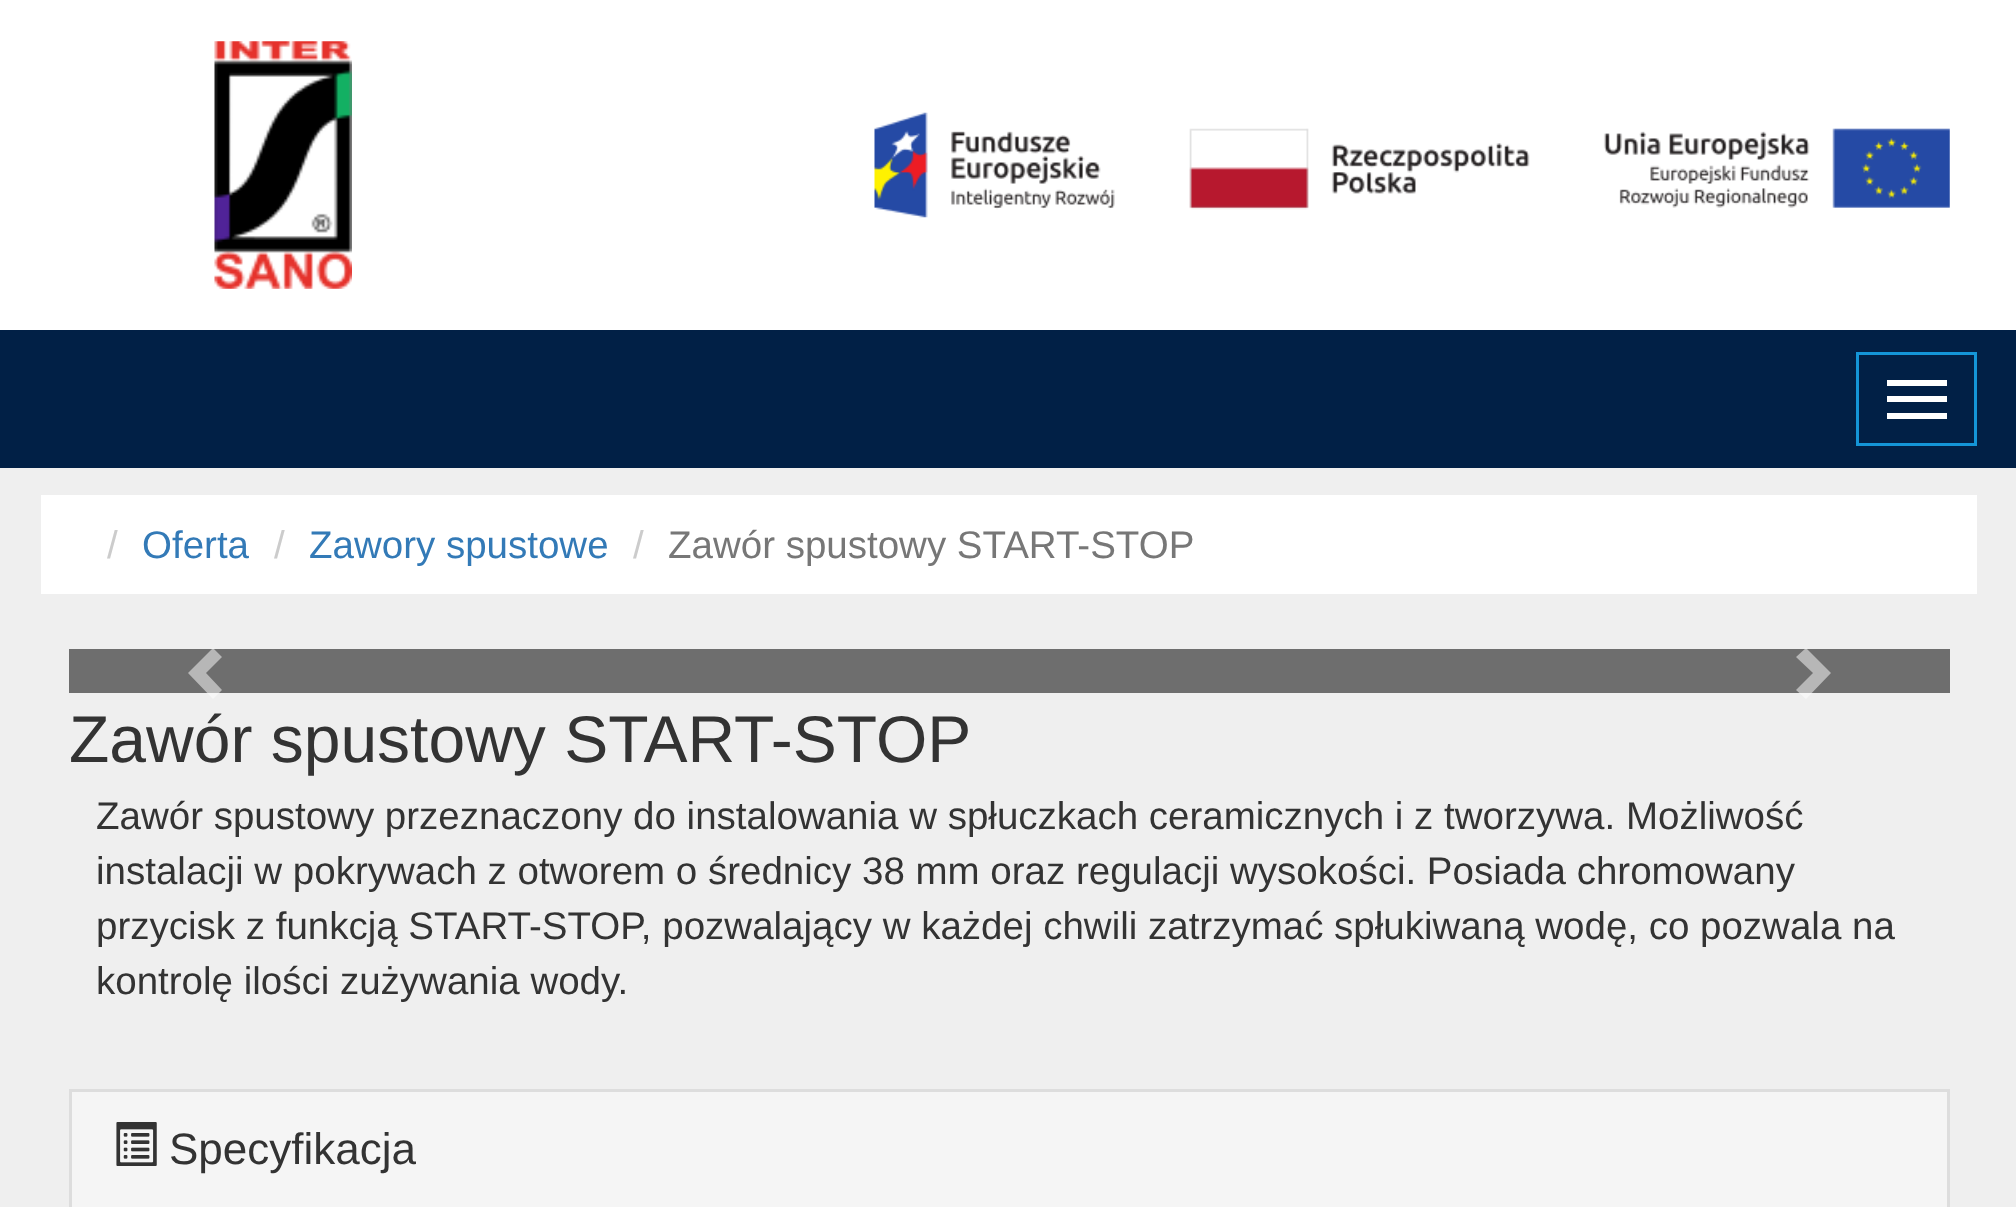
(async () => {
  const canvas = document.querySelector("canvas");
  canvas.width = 2016;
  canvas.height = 1207;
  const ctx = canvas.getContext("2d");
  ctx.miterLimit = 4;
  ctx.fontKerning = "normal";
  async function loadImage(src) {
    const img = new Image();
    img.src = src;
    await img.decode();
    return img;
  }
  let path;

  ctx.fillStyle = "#ffffff";
  ctx.fillRect(0, 0, 2016, 1207);
  ctx.drawImage(await loadImage("img/1.png"), 214, 41, 138, 248);
  ctx.drawImage(await loadImage("img/2.png"), 874, 112, 1076, 106);
  ctx.fillStyle = "#012046";
  ctx.fillRect(0, 330, 2016, 138);
  ctx.strokeStyle = "#1495d7";
  ctx.lineWidth = 3;
  ctx.strokeRect(1857.5, 353.5, 118, 91);
  for (const [x, y, w, h, color] of [
    [1887, 380, 60, 6, "#ffffff"],
    [1887, 396, 60, 6, "#ffffff"],
    [1887, 413, 60, 6, "#ffffff"],
    [0, 468, 2016, 739, "#efefef"],
    [41, 495, 1936, 99, "#ffffff"],
    [69, 649, 1881, 44, "#6e6e6e"],
  ]) {
    ctx.fillStyle = color;
    ctx.fillRect(x, y, w, h);
  }
  ctx.fillStyle = "rgba(255, 255, 255, 0.5)";
  path = new Path2D("M222 657L206 673L222 690L213 699L188 673L213 648Z");
  ctx.fill(path);
  path = new Path2D("M1831 673L1806 699L1796 690L1813 673L1796 657L1806 648Z");
  ctx.fill(path);
  ctx.strokeStyle = "#dddddd";
  ctx.strokeRect(70.5, 1090.5, 1878, 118);
  ctx.fillStyle = "#f5f5f5";
  ctx.fillRect(72, 1092, 1875, 115);
  ctx.drawImage(await loadImage("img/3.png"), 116, 1122, 41, 44);
  ctx.font = "38.5px Liberation Sans";
  ctx.fillStyle = "#cccccc";
  ctx.fillText("/", 107, 558);
  ctx.fillStyle = "#337ab7";
  ctx.fillText("Oferta", 142, 558);
  ctx.fillStyle = "#cccccc";
  ctx.fillText("/", 274, 558);
  ctx.fillStyle = "#337ab7";
  ctx.fillText("Zawory spustowe", 309, 558);
  ctx.fillStyle = "#cccccc";
  ctx.fillText("/", 633, 558);
  ctx.fillStyle = "#777777";
  ctx.fillText("Zawór spustowy START-STOP", 668, 558);
  ctx.font = "66px Liberation Sans";
  ctx.fillStyle = "#333333";
  ctx.fillText("Zawór spustowy START-STOP", 69, 762);
  ctx.font = "38.5px Liberation Sans";
  for (const [text, x, y] of [
    ["Zawór spustowy przeznaczony do instalowania w spłuczkach ceramicznych i z tworzywa. Możliwość", 96, 829],
    ["instalacji w pokrywach z otworem o średnicy 38 mm oraz regulacji wysokości. Posiada chromowany", 96, 884],
    ["przycisk z funkcją START-STOP, pozwalający w każdej chwili zatrzymać spłukiwaną wodę, co pozwala na", 96, 939],
    ["kontrolę ilości zużywania wody.", 96, 994],
  ]) {
    ctx.fillText(text, x, y);
  }
  ctx.font = "44px Liberation Sans";
  ctx.fillText("Specyfikacja", 169, 1164);
})();
